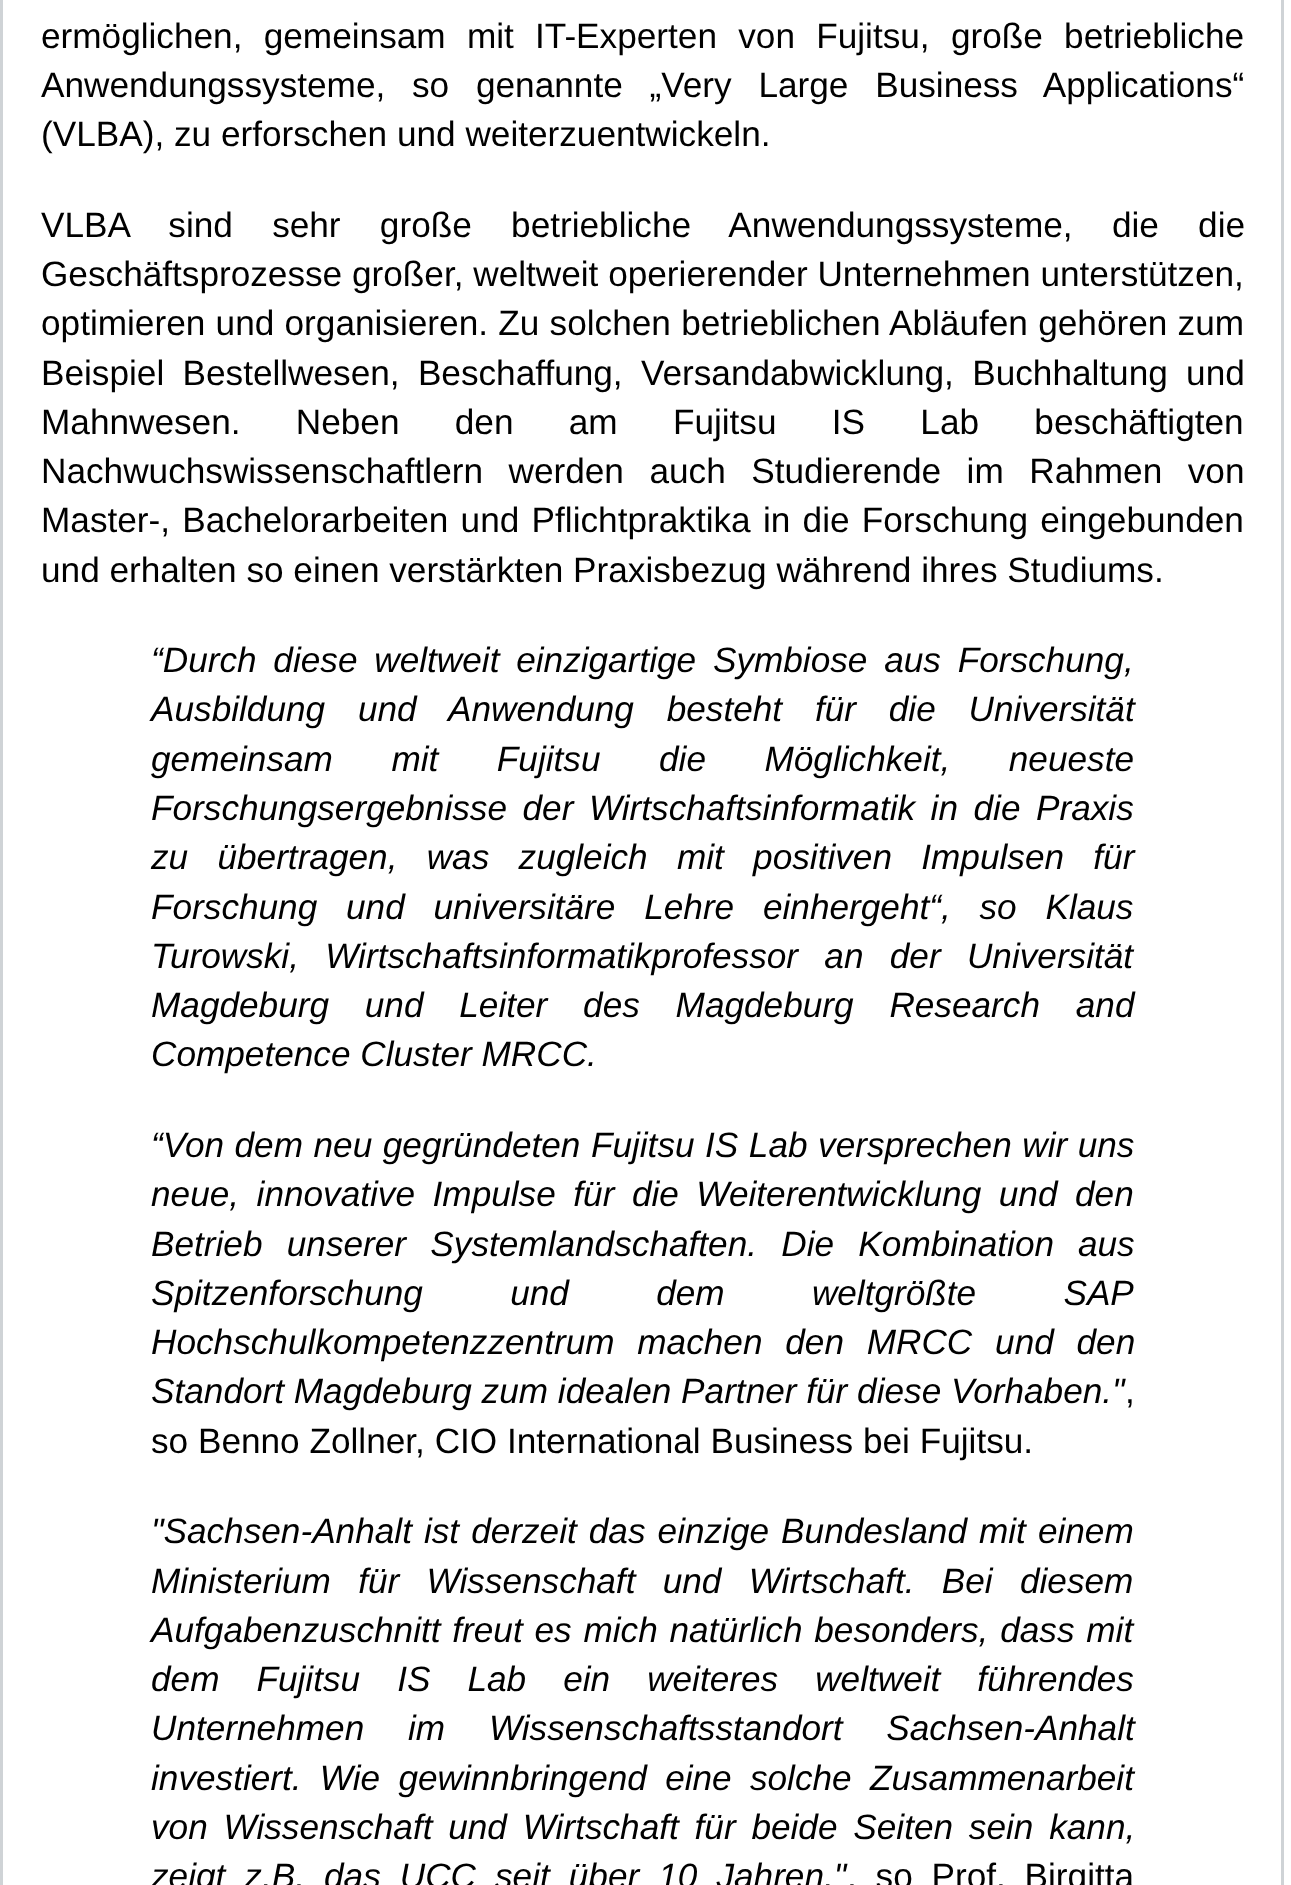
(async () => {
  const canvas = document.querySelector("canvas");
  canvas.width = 1291;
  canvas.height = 1885;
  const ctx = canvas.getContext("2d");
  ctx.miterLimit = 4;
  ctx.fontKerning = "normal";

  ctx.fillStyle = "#ffffff";
  ctx.fillRect(0, 0, 1291, 1885);
  ctx.strokeStyle = "#cfd3d6";
  ctx.lineWidth = 3;
  ctx.strokeRect(1.5, -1.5, 1281, 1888);
  ctx.wordSpacing = "11.5px";
  ctx.font = "35.2px Liberation Sans";
  ctx.fillStyle = "#000000";
  ctx.fillText("ermöglichen, gemeinsam mit IT-Experten von Fujitsu, große betriebliche", 41, 48);
  ctx.wordSpacing = "17px";
  ctx.fillText("Anwendungssysteme, so genannte „Very Large Business Applications“", 41, 97);
  ctx.wordSpacing = "0px";
  ctx.fillText("(VLBA), zu erforschen und weiterzuentwickeln.", 41, 146);
  ctx.wordSpacing = "29.5px";
  ctx.fillText("VLBA sind sehr große betriebliche Anwendungssysteme, die die", 41, 237);
  ctx.wordSpacing = "0px";
  ctx.fillText("Geschäftsprozesse großer, weltweit operierender Unternehmen unterstützen,", 41, 286);
  ctx.wordSpacing = "0.5px";
  ctx.fillText("optimieren und organisieren. Zu solchen betrieblichen Abläufen gehören zum", 41, 335);
  ctx.wordSpacing = "8.5px";
  ctx.fillText("Beispiel Bestellwesen, Beschaffung, Versandabwicklung, Buchhaltung und", 41, 385);
  ctx.wordSpacing = "45.5px";
  ctx.fillText("Mahnwesen. Neben den am Fujitsu IS Lab beschäftigten", 41, 434);
  ctx.wordSpacing = "15.75px";
  ctx.fillText("Nachwuchswissenschaftlern werden auch Studierende im Rahmen von", 41, 483);
  ctx.wordSpacing = "2.5px";
  ctx.fillText("Master-, Bachelorarbeiten und Pflichtpraktika in die Forschung eingebunden", 41, 532);
  ctx.wordSpacing = "0px";
  ctx.fillText("und erhalten so einen verstärkten Praxisbezug während ihres Studiums.", 41, 582);
  ctx.wordSpacing = "7px";
  ctx.font = "italic 35.2px Liberation Sans";
  ctx.fillText("“Durch diese weltweit einzigartige Symbiose aus Forschung,", 151, 672);
  ctx.wordSpacing = "23px";
  ctx.fillText("Ausbildung und Anwendung besteht für die Universität", 151, 721);
  ctx.wordSpacing = "48.75px";
  ctx.fillText("gemeinsam mit Fujitsu die Möglichkeit, neueste", 151, 771);
  ctx.wordSpacing = "5.75px";
  ctx.fillText("Forschungsergebnisse der Wirtschaftsinformatik in die Praxis", 151, 820);
  ctx.wordSpacing = "19.5px";
  ctx.fillText("zu übertragen, was zugleich mit positiven Impulsen für", 151, 869);
  ctx.wordSpacing = "19px";
  ctx.fillText("Forschung und universitäre Lehre einhergeht“, so Klaus", 151, 919);
  ctx.wordSpacing = "16.5px";
  ctx.fillText("Turowski, Wirtschaftsinformatikprofessor an der Universität", 151, 968);
  ctx.wordSpacing = "26px";
  ctx.fillText("Magdeburg und Leiter des Magdeburg Research and", 151, 1017);
  ctx.wordSpacing = "0px";
  ctx.fillText("Competence Cluster MRCC.", 151, 1066);
  ctx.wordSpacing = "0.75px";
  ctx.fillText("“Von dem neu gegründeten Fujitsu IS Lab versprechen wir uns", 151, 1157);
  ctx.wordSpacing = "7.75px";
  ctx.fillText("neue, innovative Impulse für die Weiterentwicklung und den", 151, 1206);
  ctx.wordSpacing = "14.5px";
  ctx.fillText("Betrieb unserer Systemlandschaften. Die Kombinati", 151, 1256);
  ctx.wordSpacing = "14px";
  ctx.fillText("on aus", 1015, 1256);
  ctx.wordSpacing = "77.5px";
  ctx.fillText("Spitzenforschung und dem weltgrößte SAP", 151, 1305);
  ctx.wordSpacing = "13px";
  ctx.fillText("Hochschulkompetenzzentrum machen den MRCC und den", 151, 1354);
  ctx.wordSpacing = "0px";
  ctx.fillText("Standort Magdeburg zum idealen Partner für diese Vorhaben.\"", 151, 1403);
  ctx.font = "35.2px Liberation Sans";
  ctx.fillText(",", 1125, 1403);
  ctx.fillText("so Benno Zollner, CIO International Business bei Fujitsu.", 151, 1453);
  ctx.wordSpacing = "2.25px";
  ctx.font = "italic 35.2px Liberation Sans";
  ctx.fillText("\"Sachsen-Anhalt ist derzeit das einzige Bundesland mit einem", 151, 1543);
  ctx.wordSpacing = "17.5px";
  ctx.fillText("Ministerium für Wissenschaft und Wirtschaft. Bei diesem", 151, 1593);
  ctx.wordSpacing = "2px";
  ctx.fillText("Aufgabenzuschnitt freut es mich natürlich besonders, dass mit", 151, 1642);
  ctx.wordSpacing = "27.25px";
  ctx.fillText("dem Fujitsu IS Lab ein weiteres weltweit führendes", 151, 1691);
  ctx.wordSpacing = "34px";
  ctx.fillText("Unternehmen im Wissenschaftsstandort Sachsen-Anhalt", 151, 1740);
  ctx.wordSpacing = "8.5px";
  ctx.fillText("investiert. Wie gewinnbringend eine solche Zusammenarbeit", 151, 1790);
  ctx.wordSpacing = "6px";
  ctx.fillText("von Wissenschaft und Wirtschaft für beide Seiten sein kann,", 151, 1839);
  ctx.wordSpacing = "9.25px";
  ctx.fillText("zeigt z.B. das UCC seit über 10 Jahren.\"", 151, 1888);
  ctx.wordSpacing = "9px";
  ctx.font = "35.2px Liberation Sans";
  ctx.fillText(", so Prof. Birgitta", 847, 1888);
})();
